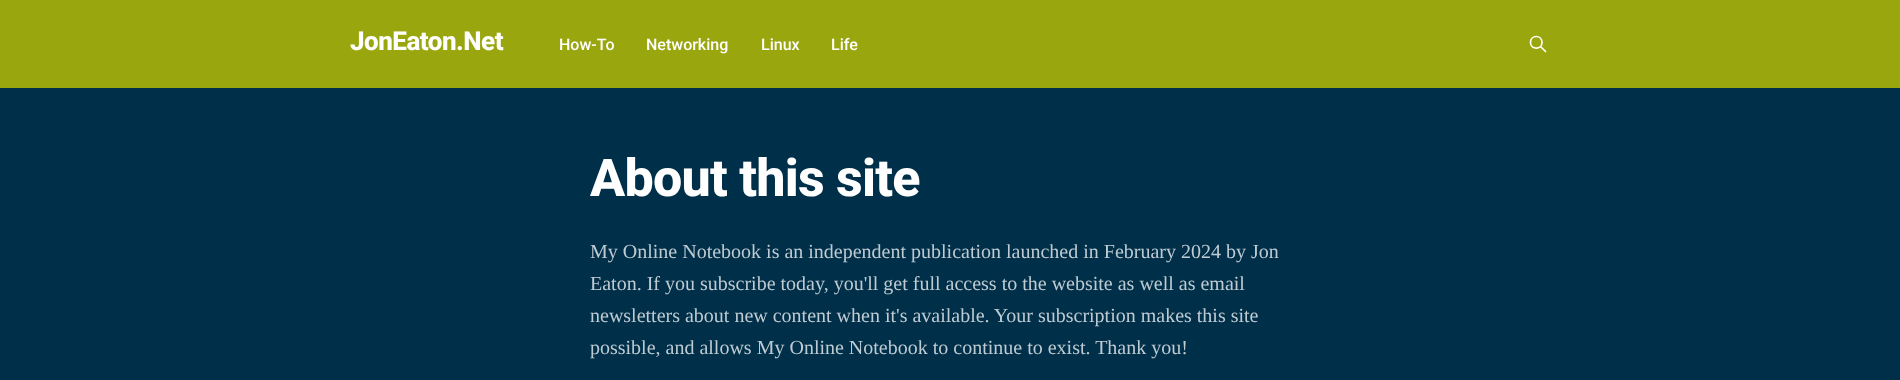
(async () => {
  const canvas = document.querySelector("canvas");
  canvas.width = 1900;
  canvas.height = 380;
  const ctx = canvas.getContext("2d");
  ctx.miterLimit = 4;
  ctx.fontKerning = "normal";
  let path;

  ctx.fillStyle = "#002f49";
  ctx.fillRect(0, 0, 1900, 380);
  ctx.fillStyle = "#9aa60e";
  ctx.fillRect(0, 0, 1900, 88);
  path = new Path2D("M1545.5 51.5L1540.5 46.5M1542 42.5C1542 50 1530.5 50 1530.5 42.5C1530.5 34.5 1542 34.5 1542 42.5Z");
  ctx.strokeStyle = "#ffffff";
  ctx.lineWidth = 1.7;
  ctx.lineCap = "round";
  ctx.lineJoin = "round";
  ctx.stroke(path);
  ctx.letterSpacing = "-0.5px";
  ctx.font = "800 26px Roboto";
  ctx.fillStyle = "#ffffff";
  ctx.fillText("JonEaton.Net", 350, 50);
  ctx.letterSpacing = "0px";
  ctx.font = "500 16px Roboto";
  for (const [text, x, y] of [
    ["How-To", 559, 50],
    ["Networking", 646, 50],
    ["Linux", 761, 50],
    ["Life", 831, 50],
  ]) {
    ctx.fillText(text, x, y);
  }
  ctx.letterSpacing = "-0.75px";
  ctx.font = "800 52px Roboto";
  ctx.fillText("About this site", 590, 196);
  ctx.letterSpacing = "0px";
  ctx.font = "20px Liberation Serif";
  ctx.fillStyle = "#bfcbd2";
  for (const [text, x, y] of [
    ["My Online Notebook is an independent publication launched in February 2024 by Jon", 590, 258],
    ["Eaton. If you subscribe today, you'll get full access to the website as well as email", 590, 290],
    ["newsletters about new content when it's available. Your subscription makes this site", 590, 322],
    ["possible, and allows My Online Notebook to continue to exist. Thank you!", 590, 354],
  ]) {
    ctx.fillText(text, x, y);
  }
})();
